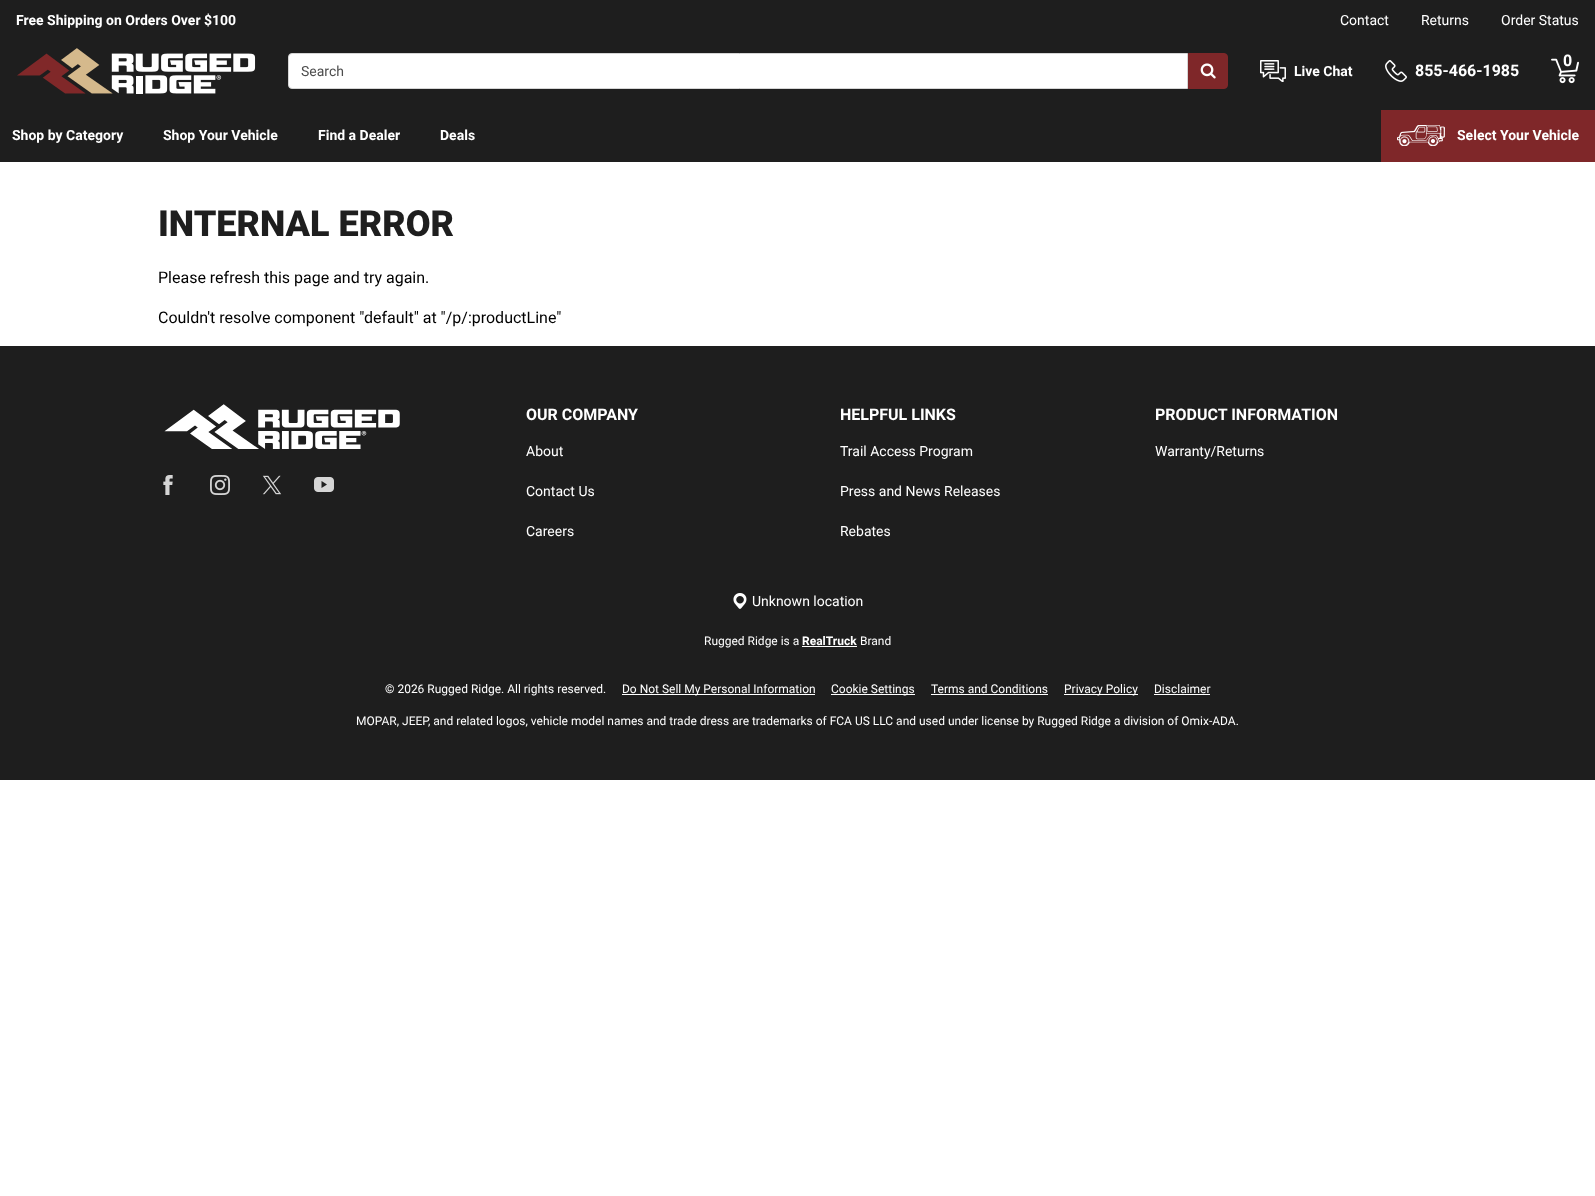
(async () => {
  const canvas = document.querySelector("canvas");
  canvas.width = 1595;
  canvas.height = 1196;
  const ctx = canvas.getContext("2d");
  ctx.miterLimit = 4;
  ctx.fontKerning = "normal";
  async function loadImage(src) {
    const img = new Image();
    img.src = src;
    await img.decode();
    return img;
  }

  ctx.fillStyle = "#ffffff";
  ctx.fillRect(0, 0, 1595, 1196);
  ctx.fillStyle = "#1e1e1e";
  ctx.fillRect(0, 0, 1595, 110);
  ctx.drawImage(await loadImage("img/1.png"), 17, 48, 239, 46);
  ctx.fillStyle = "#ffffff";
  ctx.beginPath();
  ctx.roundRect(288.5, 53.5, 899, 35, [3.5, 0, 0, 3.5]);
  ctx.fill();
  ctx.strokeStyle = "#d5d5d5";
  ctx.stroke();
  ctx.fillStyle = "#7f2729";
  ctx.beginPath();
  ctx.roundRect(1188.5, 53.5, 39, 35, [0, 3.5, 3.5, 0]);
  ctx.fill();
  ctx.strokeStyle = "#7f2729";
  ctx.stroke();
  ctx.drawImage(await loadImage("img/2.png"), 1200, 63, 16, 16);
  ctx.drawImage(await loadImage("img/3.png"), 1551, 58, 28, 26);
  ctx.drawImage(await loadImage("img/4.png"), 1260, 60, 26, 22);
  ctx.drawImage(await loadImage("img/5.png"), 1385, 60, 22, 22);
  ctx.fillStyle = "#1e1e1e";
  ctx.fillRect(0, 110, 1381, 52);
  ctx.fillStyle = "#7f2729";
  ctx.fillRect(1381, 110, 214, 52);
  ctx.drawImage(await loadImage("img/6.png"), 1397, 125, 48, 21);
  ctx.fillStyle = "#1e1e1e";
  ctx.fillRect(0, 346, 1595, 434);
  ctx.drawImage(await loadImage("img/7.png"), 164, 404, 236, 45);
  ctx.drawImage(await loadImage("img/8.png"), 163, 475, 10, 20);
  ctx.drawImage(await loadImage("img/9.png"), 210, 475, 20, 20);
  ctx.drawImage(await loadImage("img/10.png"), 262, 475, 20, 20);
  ctx.drawImage(await loadImage("img/11.png"), 314, 477, 20, 15);
  ctx.drawImage(await loadImage("img/12.png"), 733, 593, 14, 16);
  for (const [x, y, w, h, color] of [
    [802, 646, 55, 1, "#ffffff"],
    [622, 694, 193, 1, "#ffffff"],
    [831, 694, 84, 1, "#ffffff"],
    [931, 694, 117, 1, "#ffffff"],
    [1064, 694, 74, 1, "#ffffff"],
    [1154, 694, 56, 1, "#ffffff"],
  ]) {
    ctx.fillStyle = color;
    ctx.fillRect(x, y, w, h);
  }
  ctx.font = "bold 14px Roboto";
  ctx.fillText("Free Shipping on Orders Over $100", 16, 25);
  ctx.font = "14px Roboto";
  for (const [text, x, y] of [
    ["Contact", 1340, 25],
    ["Returns", 1421, 25],
    ["Order Status", 1501, 25],
  ]) {
    ctx.fillText(text, x, y);
  }
  ctx.fillStyle = "#4d4d4d";
  ctx.fillText("Search", 301, 76);
  ctx.font = "bold 16px Roboto";
  ctx.fillStyle = "#ffffff";
  ctx.fillText("0", 1563, 66);
  ctx.font = "bold 14px Roboto";
  ctx.fillText("Live Chat", 1294, 76);
  ctx.font = "bold 16px Roboto";
  ctx.fillText("855-466-1985", 1415, 76);
  ctx.font = "bold 14px Roboto";
  for (const [text, x, y] of [
    ["Shop by Category", 12, 140],
    ["Shop Your Vehicle", 163, 140],
    ["Find a Dealer", 318, 140],
    ["Deals", 440, 140],
    ["Select Your Vehicle", 1457, 140],
  ]) {
    ctx.fillText(text, x, y);
  }
  ctx.font = "900 36px Roboto";
  ctx.fillStyle = "#1e1e1e";
  ctx.fillText("INTERNAL ERROR", 158, 236);
  ctx.font = "16px Roboto";
  ctx.fillStyle = "#000000";
  ctx.fillText("Please refresh this page and try again.", 158, 283);
  ctx.fillText("Couldn't resolve component \"default\" at \"/p/:productLine\"", 158, 323);
  ctx.font = "bold 16px Roboto";
  ctx.fillStyle = "#ffffff";
  ctx.fillText("OUR COMPANY", 526, 420);
  ctx.font = "14px Roboto";
  for (const [text, x, y] of [
    ["About", 526, 456],
    ["Contact Us", 526, 496],
    ["Careers", 526, 536],
  ]) {
    ctx.fillText(text, x, y);
  }
  ctx.font = "bold 16px Roboto";
  ctx.fillText("HELPFUL LINKS", 840, 420);
  ctx.font = "14px Roboto";
  for (const [text, x, y] of [
    ["Trail Access Program", 840, 456],
    ["Press and News Releases", 840, 496],
    ["Rebates", 840, 536],
  ]) {
    ctx.fillText(text, x, y);
  }
  ctx.font = "bold 16px Roboto";
  ctx.fillText("PRODUCT INFORMATION", 1155, 420);
  ctx.font = "14px Roboto";
  ctx.fillText("Warranty/Returns", 1155, 456);
  ctx.fillText("Unknown location", 752, 606);
  ctx.font = "12px Roboto";
  ctx.fillText("Rugged Ridge is a", 704, 645);
  ctx.font = "bold 12px Roboto";
  ctx.fillText("RealTruck", 802, 645);
  ctx.font = "12px Roboto";
  for (const [text, x, y] of [
    ["Brand", 860, 645],
    ["© 2026 Rugged Ridge. All rights reserved.", 385, 693],
    ["Do Not Sell My Personal Information", 622, 693],
    ["Cookie Settings", 831, 693],
    ["Terms and Conditions", 931, 693],
    ["Privacy Policy", 1064, 693],
    ["Disclaimer", 1154, 693],
    ["MOPAR, JEEP, and related logos, vehicle model names and trade dress are trademarks of FCA US LLC and used under license by Rugged Ridge a division of Omix-ADA.", 356, 725],
  ]) {
    ctx.fillText(text, x, y);
  }
})();
